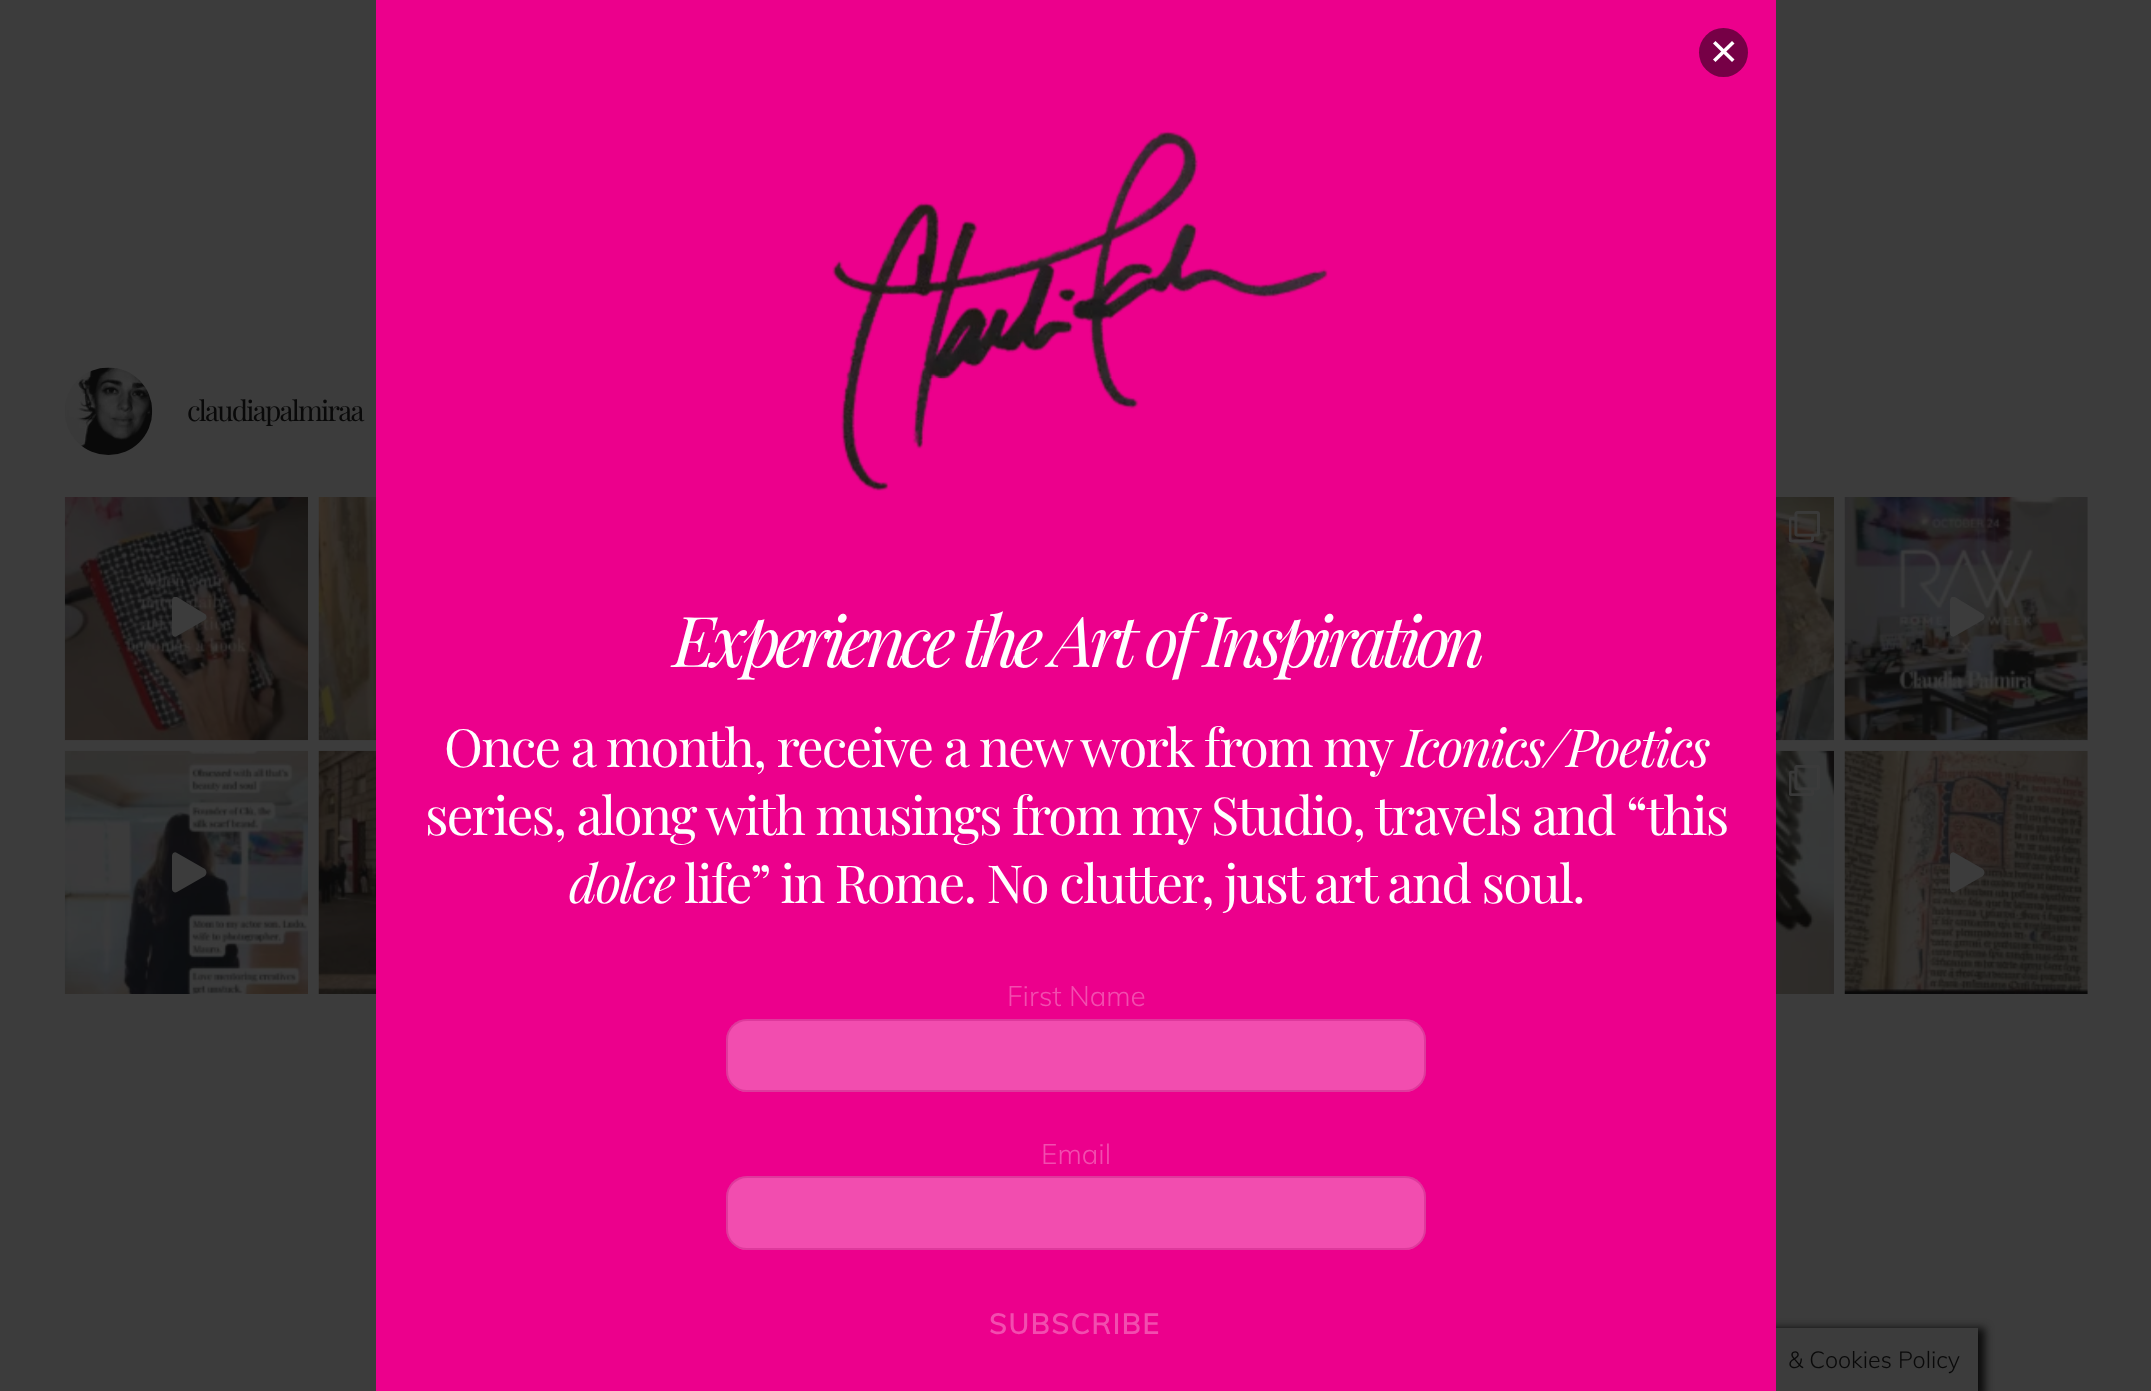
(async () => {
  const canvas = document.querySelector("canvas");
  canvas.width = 2151;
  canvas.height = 1391;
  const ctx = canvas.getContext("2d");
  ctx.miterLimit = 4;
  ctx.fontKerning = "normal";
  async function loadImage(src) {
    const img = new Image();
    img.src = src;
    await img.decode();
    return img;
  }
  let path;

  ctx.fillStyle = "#3c3c3c";
  ctx.fillRect(0, 0, 2151, 1391);
  ctx.drawImage(await loadImage("img/1.png"), 65, 367, 88, 88);
  ctx.drawImage(await loadImage("img/2.png"), 64, 497, 244, 244);
  ctx.save();
  ctx.beginPath();
  ctx.rect(172, 597, 35, 40);
  ctx.clip();
  path = new Path2D("M205 614L177 597C175 596 172 597 172 601V633C172 636 175 638 177 636L205 620C207 619 207 615 205 614Z");
  ctx.fill(path);
  ctx.restore();
  ctx.drawImage(await loadImage("img/3.png"), 318, 497, 58, 244);
  ctx.drawImage(await loadImage("img/4.png"), 1776, 497, 58, 244);
  ctx.drawImage(await loadImage("img/5.png"), 1789, 511, 31, 32);
  ctx.drawImage(await loadImage("img/6.png"), 1844, 497, 244, 244);
  ctx.save();
  ctx.beginPath();
  ctx.rect(1950, 597, 36, 40);
  ctx.clip();
  path = new Path2D("M1983 614L1955 597C1953 596 1950 597 1950 601V633C1950 636 1953 638 1955 636L1983 620C1985 619 1985 615 1983 614Z");
  ctx.fill(path);
  ctx.restore();
  ctx.drawImage(await loadImage("img/7.png"), 64, 750, 244, 244);
  path = new Path2D("M205 869L177 853C175 851 172 853 172 856V889C172 892 175 893 177 892L205 876C207 874 207 871 205 869Z");
  ctx.fill(path);
  ctx.drawImage(await loadImage("img/8.png"), 318, 750, 58, 244);
  ctx.drawImage(await loadImage("img/9.png"), 1776, 750, 58, 244);
  ctx.drawImage(await loadImage("img/10.png"), 1789, 765, 31, 31);
  ctx.drawImage(await loadImage("img/11.png"), 1844, 750, 244, 244);
  path = new Path2D("M1983 869L1955 853C1953 851 1950 853 1950 856V889C1950 892 1953 893 1955 892L1983 876C1985 874 1985 871 1983 869Z");
  ctx.fill(path);
  ctx.fillStyle = "#0d0d0d";
  ctx.filter = "blur(4.5px)";
  ctx.beginPath();
  ctx.rect(1687, 1328, 298, 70);
  ctx.fill();
  ctx.filter = "none";
  ctx.fillStyle = "#ec008c";
  ctx.fillRect(376, 0, 1400, 1391);
  ctx.fillStyle = "#760046";
  ctx.beginPath();
  ctx.arc(1723.5, 52.5, 24.5, 0, Math.PI * 2);
  ctx.fill();
  ctx.fillStyle = "#ffffff";
  path = new Path2D("M1713 43.5L1715.5 41L1734.5 59.5L1732 62Z");
  ctx.fill(path);
  path = new Path2D("M1732 41L1734.5 43.5L1715.5 62L1713 59.5Z");
  ctx.fill(path);
  ctx.drawImage(await loadImage("img/12.png"), 832, 131, 496, 360);
  ctx.fillStyle = "#f24daf";
  ctx.beginPath();
  ctx.roundRect(726, 1019, 700, 73, 21);
  ctx.fill();
  ctx.beginPath();
  ctx.roundRect(727, 1020, 698, 71, 20);
  ctx.strokeStyle = "rgba(165, 0, 98, 0.25)";
  ctx.lineWidth = 2;
  ctx.stroke();
  ctx.beginPath();
  ctx.roundRect(726, 1176, 700, 74, 21);
  ctx.fill();
  ctx.beginPath();
  ctx.roundRect(727, 1177, 698, 72, 20);
  ctx.stroke();
  ctx.fillStyle = "#3c3c3c";
  ctx.fillRect(1776, 1328, 202, 63);
  ctx.letterSpacing = "-1.75px";
  ctx.font = "28px Playfair Display";
  ctx.fillStyle = "#090909";
  ctx.fillText("claudiapalmiraa", 187, 421);
  ctx.letterSpacing = "-5.25px";
  ctx.font = "italic 70px Playfair Display";
  ctx.fillStyle = "#ffffff";
  ctx.fillText("Experience the Art of Inspiration", 673, 667);
  ctx.letterSpacing = "-1.75px";
  ctx.font = "52.5px Playfair Display";
  ctx.fillText("Once a month, receive a new work from my", 444, 767);
  ctx.font = "italic 52.5px Playfair Display";
  ctx.fillText("Iconics/Poetics", 1402, 767);
  ctx.font = "52.5px Playfair Display";
  ctx.fillText("series, along with musings from my Studio, travels and “this", 425, 835);
  ctx.font = "italic 52.5px Playfair Display";
  ctx.fillText("dolce", 569, 903);
  ctx.font = "52.5px Playfair Display";
  ctx.fillText("life” in Rome. No clutter, just art and soul.", 684, 903);
  ctx.letterSpacing = "0px";
  ctx.font = "300 28px Muli";
  ctx.fillStyle = "#f24daf";
  ctx.fillText("First Name", 1007, 1006);
  ctx.fillText("Email", 1041, 1164);
  ctx.letterSpacing = "1.75px";
  ctx.font = "bold 28px Muli";
  ctx.fillText("SUBSCRIBE", 989, 1334);
  ctx.letterSpacing = "0px";
  ctx.font = "300 23.25px Muli";
  ctx.fillStyle = "#090909";
  ctx.fillText("& Cookies Policy", 1788, 1368);
})();
